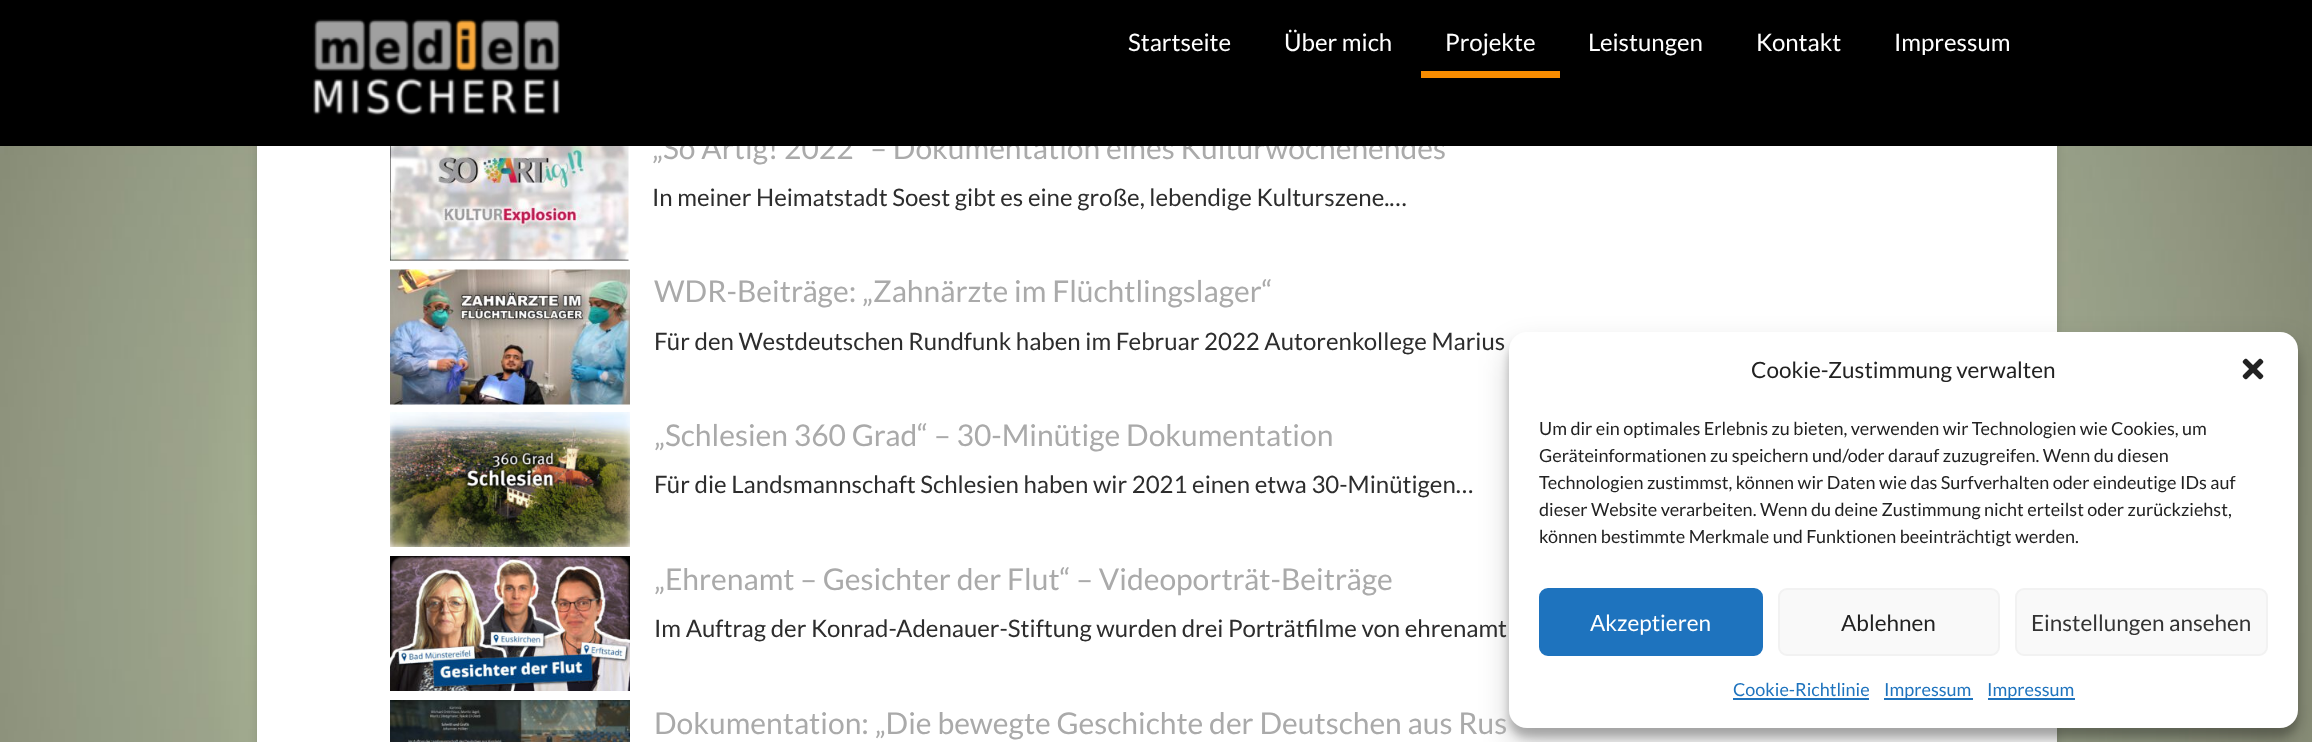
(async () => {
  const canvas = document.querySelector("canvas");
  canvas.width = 2312;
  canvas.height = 742;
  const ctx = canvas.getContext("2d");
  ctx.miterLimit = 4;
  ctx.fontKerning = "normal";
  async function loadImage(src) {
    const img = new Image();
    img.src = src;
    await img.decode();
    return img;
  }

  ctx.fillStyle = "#ffffff";
  ctx.fillRect(0, 0, 2312, 742);
  ctx.drawImage(await loadImage("img/1.png"), 0, 146, 2312, 596);
  ctx.fillStyle = "rgba(0, 0, 0, 0.13)";
  ctx.filter = "blur(4px)";
  ctx.beginPath();
  ctx.roundRect(257, -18, 1800, 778, 6);
  ctx.fill();
  ctx.filter = "none";
  ctx.fillStyle = "#ffffff";
  ctx.fillRect(257, 146, 1800, 596);
  ctx.drawImage(await loadImage("img/3.png"), 390, 146, 239, 115);
  ctx.drawImage(await loadImage("img/4.png"), 390, 269, 240, 136);
  ctx.drawImage(await loadImage("img/5.png"), 390, 412, 240, 135);
  ctx.drawImage(await loadImage("img/6.png"), 390, 556, 240, 135);
  ctx.drawImage(await loadImage("img/7.png"), 390, 700, 240, 42);
  ctx.fillStyle = "rgba(0, 0, 0, 0.23)";
  ctx.filter = "blur(4.5px)";
  ctx.beginPath();
  ctx.roundRect(1509, 341, 789, 396, 18);
  ctx.fill();
  ctx.filter = "none";
  ctx.fillStyle = "rgba(0, 0, 0, 0.19)";
  ctx.filter = "blur(15px)";
  ctx.beginPath();
  ctx.roundRect(1509, 347, 789, 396, 18);
  ctx.fill();
  ctx.filter = "none";
  ctx.fillStyle = "#ffffff";
  ctx.beginPath();
  ctx.roundRect(1509, 332, 789, 396, 18);
  ctx.fill();
  ctx.drawImage(await loadImage("img/8.png"), 2242, 358, 22, 22);
  ctx.fillStyle = "#1e73be";
  ctx.beginPath();
  ctx.roundRect(1540, 589, 222, 66, 8);
  ctx.fill();
  ctx.strokeStyle = "#1e73be";
  ctx.lineWidth = 2;
  ctx.stroke();
  ctx.fillStyle = "#f9f9f9";
  ctx.beginPath();
  ctx.roundRect(1779, 589, 220, 66, 8);
  ctx.fill();
  ctx.strokeStyle = "#f2f2f2";
  ctx.stroke();
  ctx.beginPath();
  ctx.roundRect(2016, 589, 251, 66, 8);
  ctx.fill();
  ctx.stroke();
  for (const [x, y, w, h, color] of [
    [1733, 698, 136, 2, "#1e73be"],
    [1884, 698, 89, 2, "#1e73be"],
    [1988, 698, 87, 2, "#1e73be"],
  ]) {
    ctx.fillStyle = color;
    ctx.fillRect(x, y, w, h);
  }
  ctx.font = "30px Lato";
  ctx.fillStyle = "#aaaaaa";
  ctx.fillText("„So Artig! 2022“ – Dokumentation eines Kulturwochenendes", 652, 159);
  ctx.fillStyle = "#000000";
  ctx.fillRect(0, 0, 2312, 146);
  ctx.font = "24px Lato";
  ctx.fillStyle = "#ffffff";
  for (const [text, x, y] of [
    ["Impressum", 1894, 51],
    ["Kontakt", 1756, 51],
    ["Leistungen", 1588, 51],
  ]) {
    ctx.fillText(text, x, y);
  }
  ctx.fillStyle = "#f88c00";
  ctx.fillRect(1421, 71, 139, 7);
  ctx.fillStyle = "#ffffff";
  for (const [text, x, y] of [
    ["Projekte", 1445, 51],
    ["Über mich", 1284, 51],
    ["Startseite", 1128, 51],
  ]) {
    ctx.fillText(text, x, y);
  }
  ctx.drawImage(await loadImage("img/2.png"), 313, 19, 247, 97);
  ctx.fillStyle = "#2d2d2d";
  ctx.fillText("In meiner Heimatstadt Soest gibt es eine große, lebendige Kulturszene.…", 652, 206);
  ctx.font = "30px Lato";
  ctx.fillStyle = "#aaaaaa";
  ctx.fillText("WDR-Beiträge: „Zahnärzte im Flüchtlingslager“", 654, 302);
  ctx.font = "24px Lato";
  ctx.fillStyle = "#2d2d2d";
  ctx.fillText("Für den Westdeutschen Rundfunk haben im Februar 2022 Autorenkollege Marius", 654, 350);
  ctx.font = "30px Lato";
  ctx.fillStyle = "#aaaaaa";
  ctx.fillText("„Schlesien 360 Grad“ – 30-Minütige Dokumentation", 654, 446);
  ctx.font = "24px Lato";
  ctx.fillStyle = "#2d2d2d";
  ctx.fillText("Für die Landsmannschaft Schlesien haben wir 2021 einen etwa 30-Minütigen…", 654, 493);
  ctx.font = "30px Lato";
  ctx.fillStyle = "#aaaaaa";
  ctx.fillText("„Ehrenamt – Gesichter der Flut“ – Videoporträt-Beiträge", 654, 590);
  ctx.font = "24px Lato";
  ctx.fillStyle = "#2d2d2d";
  ctx.fillText("Im Auftrag der Konrad-Adenauer-Stiftung wurden drei Porträtfilme von ehrenamt", 654, 637);
  ctx.font = "30px Lato";
  ctx.fillStyle = "#aaaaaa";
  ctx.fillText("Dokumentation: „Die bewegte Geschichte der Deutschen aus Rus", 654, 734);
  ctx.font = "22.5px Lato";
  ctx.fillStyle = "#222222";
  ctx.fillText("Cookie-Zustimmung verwalten", 1751, 378);
  ctx.font = "18px Lato";
  for (const [text, x, y] of [
    ["Um dir ein optimales Erlebnis zu bieten, verwenden wir Technologien wie Cookies, um", 1539, 435],
    ["Geräteinformationen zu speichern und/oder darauf zuzugreifen. Wenn du diesen", 1539, 462],
    ["Technologien zustimmst, können wir Daten wie das Surfverhalten oder eindeutige IDs auf", 1539, 489],
    ["dieser Website verarbeiten. Wenn du deine Zustimmung nicht erteilst oder zurückziehst,", 1539, 516],
    ["können bestimmte Merkmale und Funktionen beeinträchtigt werden.", 1539, 543],
  ]) {
    ctx.fillText(text, x, y);
  }
  ctx.font = "22.5px Lato";
  ctx.fillStyle = "#ffffff";
  ctx.fillText("Akzeptieren", 1590, 631);
  ctx.fillStyle = "#222222";
  ctx.fillText("Ablehnen", 1841, 631);
  ctx.fillStyle = "#333333";
  ctx.fillText("Einstellungen ansehen", 2031, 631);
  ctx.font = "18px Lato";
  ctx.fillStyle = "#1e73be";
  for (const [text, x, y] of [
    ["Cookie-Richtlinie", 1733, 696],
    ["Impressum", 1884, 696],
    ["Impressum", 1987, 696],
  ]) {
    ctx.fillText(text, x, y);
  }
})();
